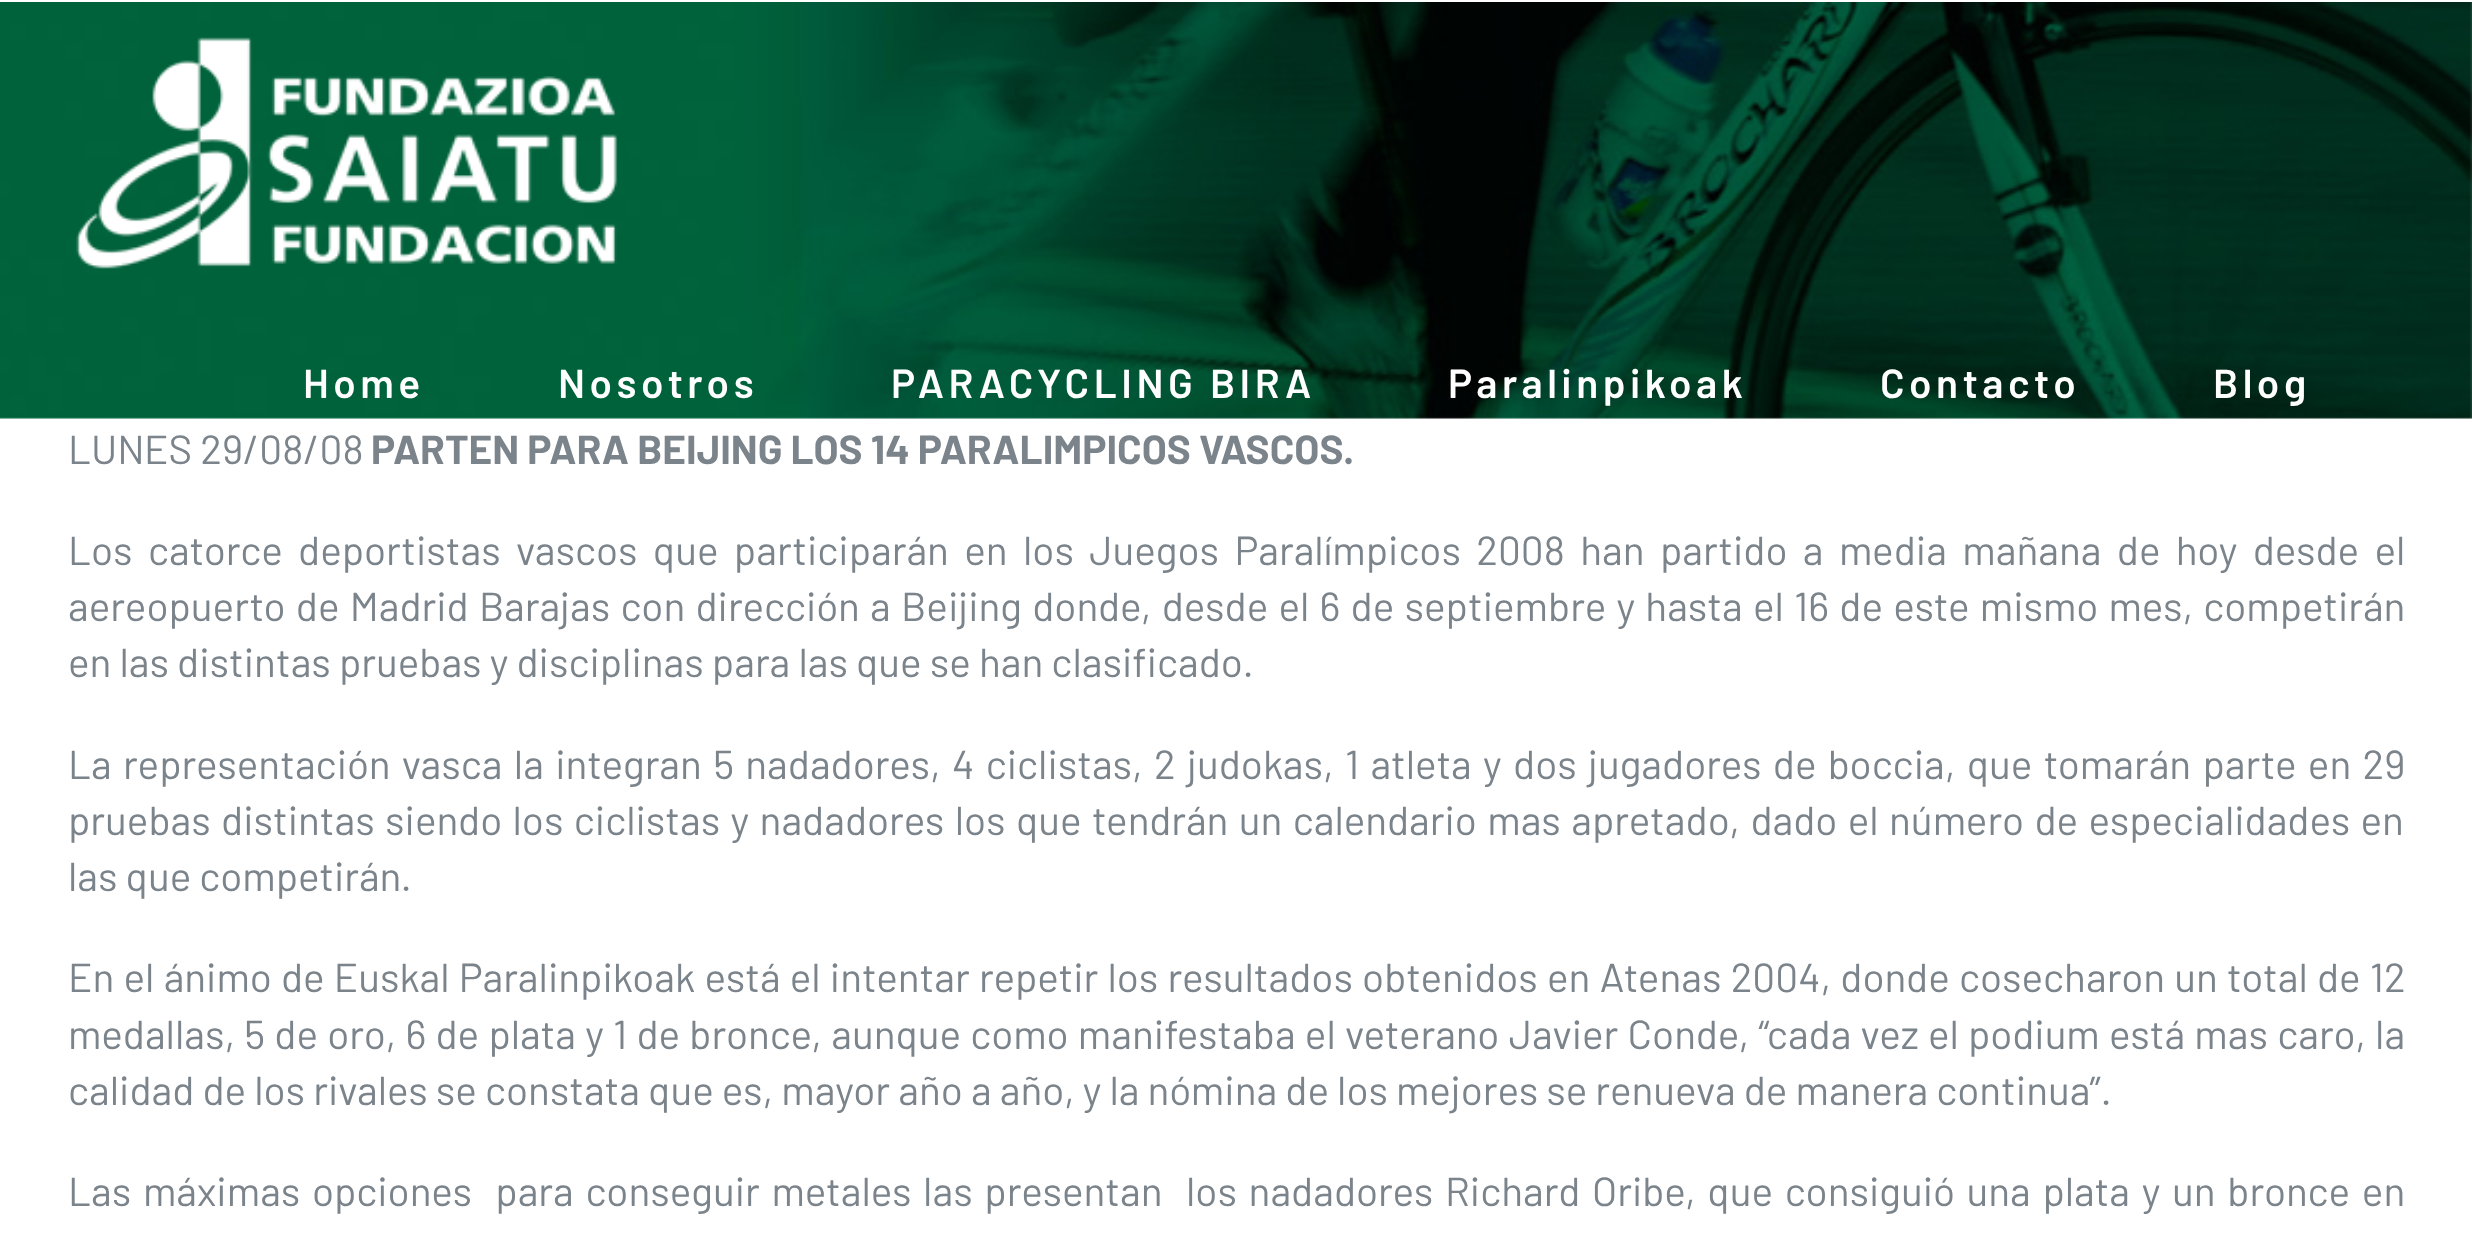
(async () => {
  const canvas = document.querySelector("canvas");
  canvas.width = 2472;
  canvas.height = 1243;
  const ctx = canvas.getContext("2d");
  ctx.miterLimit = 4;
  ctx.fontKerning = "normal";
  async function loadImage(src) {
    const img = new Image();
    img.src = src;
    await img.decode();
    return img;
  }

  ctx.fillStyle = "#ffffff";
  ctx.fillRect(0, 0, 2472, 1243);
  ctx.drawImage(await loadImage("img/1.png"), 0, 2, 2472, 417);
  ctx.drawImage(await loadImage("img/2.png"), 76, 37, 542, 232);
  ctx.letterSpacing = "4.5px";
  ctx.font = "600 40.5px Barlow";
  for (const [text, x, y] of [
    ["Home", 303, 398],
    ["Nosotros", 558, 398],
    ["PARACYCLING BIRA", 891, 398],
    ["Paralinpikoak", 1448, 398],
    ["Contacto", 1880, 398],
    ["Blog", 2213, 398],
  ]) {
    ctx.fillText(text, x, y);
  }
  ctx.letterSpacing = "0px";
  ctx.font = "40.5px Barlow";
  ctx.fillStyle = "#7b838b";
  ctx.fillText("LUNES 29/08/08", 68, 464);
  ctx.font = "bold 40.5px Barlow";
  ctx.fillText("PARTEN PARA BEIJING LOS 14 PARALIMPICOS VASCOS.", 371, 464);
  ctx.wordSpacing = "7.25px";
  ctx.font = "40.5px Barlow";
  ctx.fillText("Los catorce deportistas vascos que participarán en los Juegos Paralímpicos 2008 han partido a media mañana de hoy desde el", 68, 565);
  ctx.wordSpacing = "2.1px";
  ctx.fillText("aereopuerto de Madrid Barajas con dirección a Beijing donde, desde el 6 de septiembre y hasta el 16 de este mismo mes, competirán", 68, 621);
  ctx.wordSpacing = "0px";
  ctx.fillText("en las distintas pruebas y disciplinas para las que se han clasificado.", 68, 677);
  ctx.wordSpacing = "3.2px";
  ctx.fillText("La representación vasca la integran 5 nadadores, 4 ciclistas, 2 judokas, 1 atleta y dos jugadores de boccia, que tomarán parte en 29", 68, 779);
  ctx.wordSpacing = "2.25px";
  ctx.fillText("pruebas distintas siendo los ciclistas y nadadores los que tendrán un calendario mas apretado, dado el número de especialidades en", 68, 835);
  ctx.wordSpacing = "0px";
  ctx.fillText("las que competirán.", 68, 891);
  ctx.wordSpacing = "1.1px";
  ctx.fillText("En el ánimo de Euskal Paralinpikoak está el intentar repetir los resultados obtenidos en Atenas 2004, donde cosecharon un total de 12", 68, 992);
  ctx.fillText("medallas, 5 de oro, 6 de plata y 1 de bronce, aunque como manifestaba el veterano Javier Conde, “cada vez el podium está mas caro, la", 68, 1049);
  ctx.wordSpacing = "0px";
  ctx.fillText("calidad de los rivales se constata que es, mayor año a año, y la nómina de los mejores se renueva de manera continua”.", 68, 1105);
  ctx.wordSpacing = "3.6px";
  ctx.fillText("Las máximas opciones  para conseguir metales las presentan  los nadadores Richard Oribe, que consiguió una plata y un bronce en", 68, 1206);
})();
